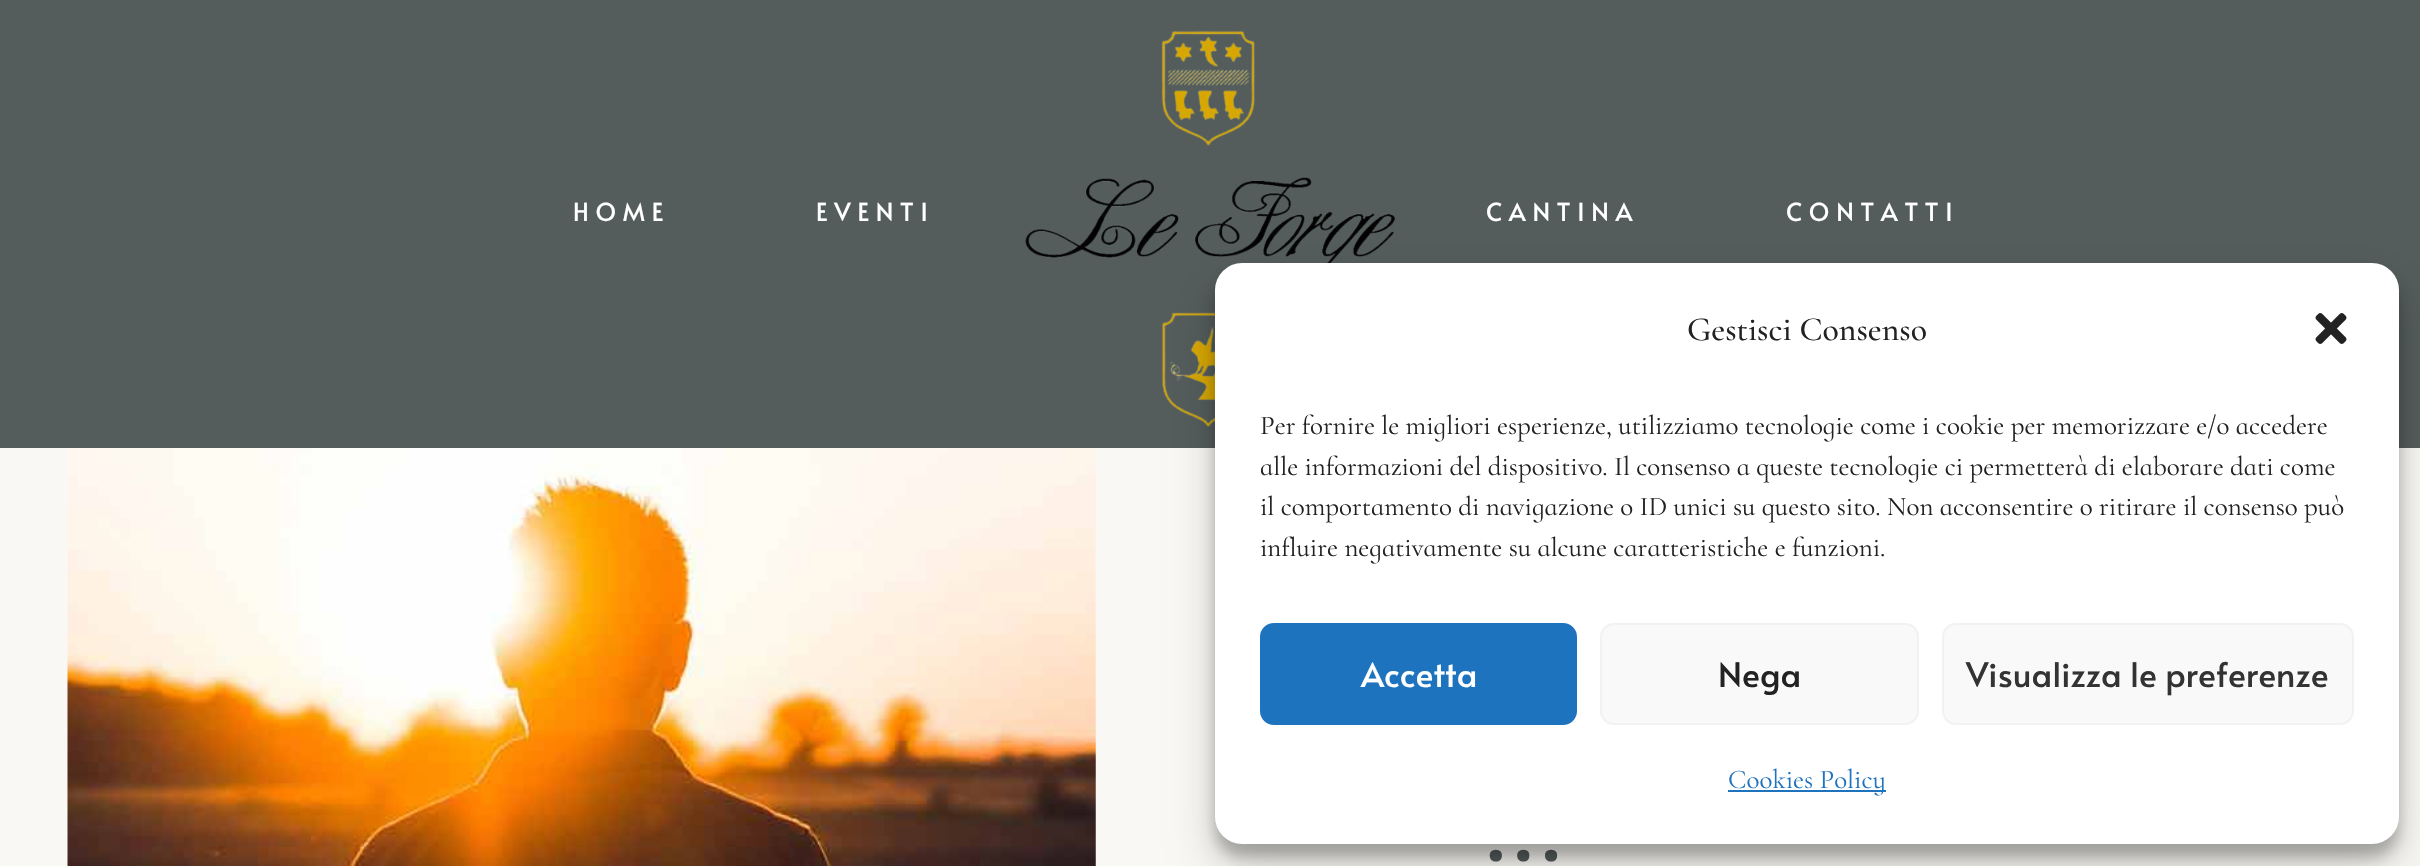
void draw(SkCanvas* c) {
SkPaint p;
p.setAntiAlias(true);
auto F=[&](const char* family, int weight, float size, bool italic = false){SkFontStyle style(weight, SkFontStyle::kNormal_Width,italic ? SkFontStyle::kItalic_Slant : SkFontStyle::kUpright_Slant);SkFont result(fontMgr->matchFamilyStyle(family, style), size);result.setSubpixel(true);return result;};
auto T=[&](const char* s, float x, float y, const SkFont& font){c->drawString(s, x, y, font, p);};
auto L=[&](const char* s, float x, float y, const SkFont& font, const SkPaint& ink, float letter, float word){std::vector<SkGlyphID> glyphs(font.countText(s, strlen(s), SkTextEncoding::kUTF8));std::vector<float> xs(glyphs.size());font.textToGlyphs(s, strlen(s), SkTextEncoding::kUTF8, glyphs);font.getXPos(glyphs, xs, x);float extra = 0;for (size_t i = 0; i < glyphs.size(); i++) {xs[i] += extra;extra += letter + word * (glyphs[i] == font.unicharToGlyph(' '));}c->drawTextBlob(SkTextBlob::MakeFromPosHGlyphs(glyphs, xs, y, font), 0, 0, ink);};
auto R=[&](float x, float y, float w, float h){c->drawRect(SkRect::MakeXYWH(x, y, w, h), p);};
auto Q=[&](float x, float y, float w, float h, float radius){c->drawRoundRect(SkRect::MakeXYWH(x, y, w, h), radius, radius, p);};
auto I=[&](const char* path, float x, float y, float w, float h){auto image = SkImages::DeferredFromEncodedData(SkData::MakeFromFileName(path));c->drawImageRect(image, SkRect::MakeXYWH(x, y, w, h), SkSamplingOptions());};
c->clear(0xfff9f8f4);
p.setColor(0xff545d5c);
R(0,0,2420,448);
auto f1 = F("Alata",400,24.75);
p.setColor(0xffffffff);
L("HOME",573,221,f1,p,6.75,0);
L("EVENTI",816,221,f1,p,6.75,0);
I("1.png",1025,30,371,397);
L("CANTINA",1486,221,f1,p,6.75,0);
L("CONTATTI",1786,221,f1,p,6.75,0);
I("2.png",67,448,1029,418);
auto f2 = F("Cormorant Infant",400,140);
p.setColor(0xff545d5c);
T("...",1482,860,f2);
p.setColor(0x3b000000);
p.setMaskFilter(SkMaskFilter::MakeBlur(kNormal_SkBlurStyle, 7));
c->drawRoundRect(SkRect::MakeXYWH(1215,277,1184,580),27,27,p);
p.setMaskFilter(nullptr);
p.setColor(0x30000000);
p.setMaskFilter(SkMaskFilter::MakeBlur(kNormal_SkBlurStyle, 22.5));
c->drawRoundRect(SkRect::MakeXYWH(1215,286,1184,580),27,27,p);
p.setMaskFilter(nullptr);
p.setColor(0xffffffff);
Q(1215,263,1184,581,27);
auto f3 = F("Cormorant Infant",500,33.75);
p.setColor(0xff222222);
T("Gestisci Consenso",1687,340,f3);
I("3.png",2315,313,32,31);
auto f4 = F("Cormorant Infant",400,27);
T("Per fornire le migliori esperienze, utilizziamo tecnologie come i cookie per memorizzare e/o accedere",1260,434,f4);
T("alle informazioni del dispositivo. Il consenso a queste tecnologie ci permetterà di elaborare dati come",1260,475,f4);
T("il comportamento di navigazione o ID unici su questo sito. Non acconsentire o ritirare il consenso può",1260,515,f4);
T("influire negativamente su alcune caratteristiche e funzioni.",1260,556,f4);
p.setColor(0xff1e73be);
c->drawRoundRect(SkRect::MakeXYWH(1261,624,315,100),13,13,p);
p.setStroke(true);
p.setStrokeWidth(2);
c->drawRoundRect(SkRect::MakeXYWH(1261,624,315,100),13,13,p);
auto f5 = F("Alata",400,33.75);
p.setStroke(false);
p.setColor(0xffffffff);
T("Accetta",1361,687,f5);
p.setColor(0xfff9f9f9);
c->drawRoundRect(SkRect::MakeXYWH(1601,624,317,100),13,13,p);
p.setStroke(true);
p.setColor(0xfff2f2f2);
c->drawRoundRect(SkRect::MakeXYWH(1601,624,317,100),13,13,p);
p.setStroke(false);
p.setColor(0xff222222);
T("Nega",1718,687,f5);
p.setColor(0xfff9f9f9);
c->drawRoundRect(SkRect::MakeXYWH(1943,624,410,100),13,13,p);
p.setStroke(true);
p.setColor(0xfff2f2f2);
c->drawRoundRect(SkRect::MakeXYWH(1943,624,410,100),13,13,p);
p.setStroke(false);
p.setColor(0xff333333);
T("Visualizza le preferenze",1966,687,f5);
p.setColor(0xff1e73be);
R(1728,790,158,2);
T("Cookies Policy",1728,788,f4);
}
